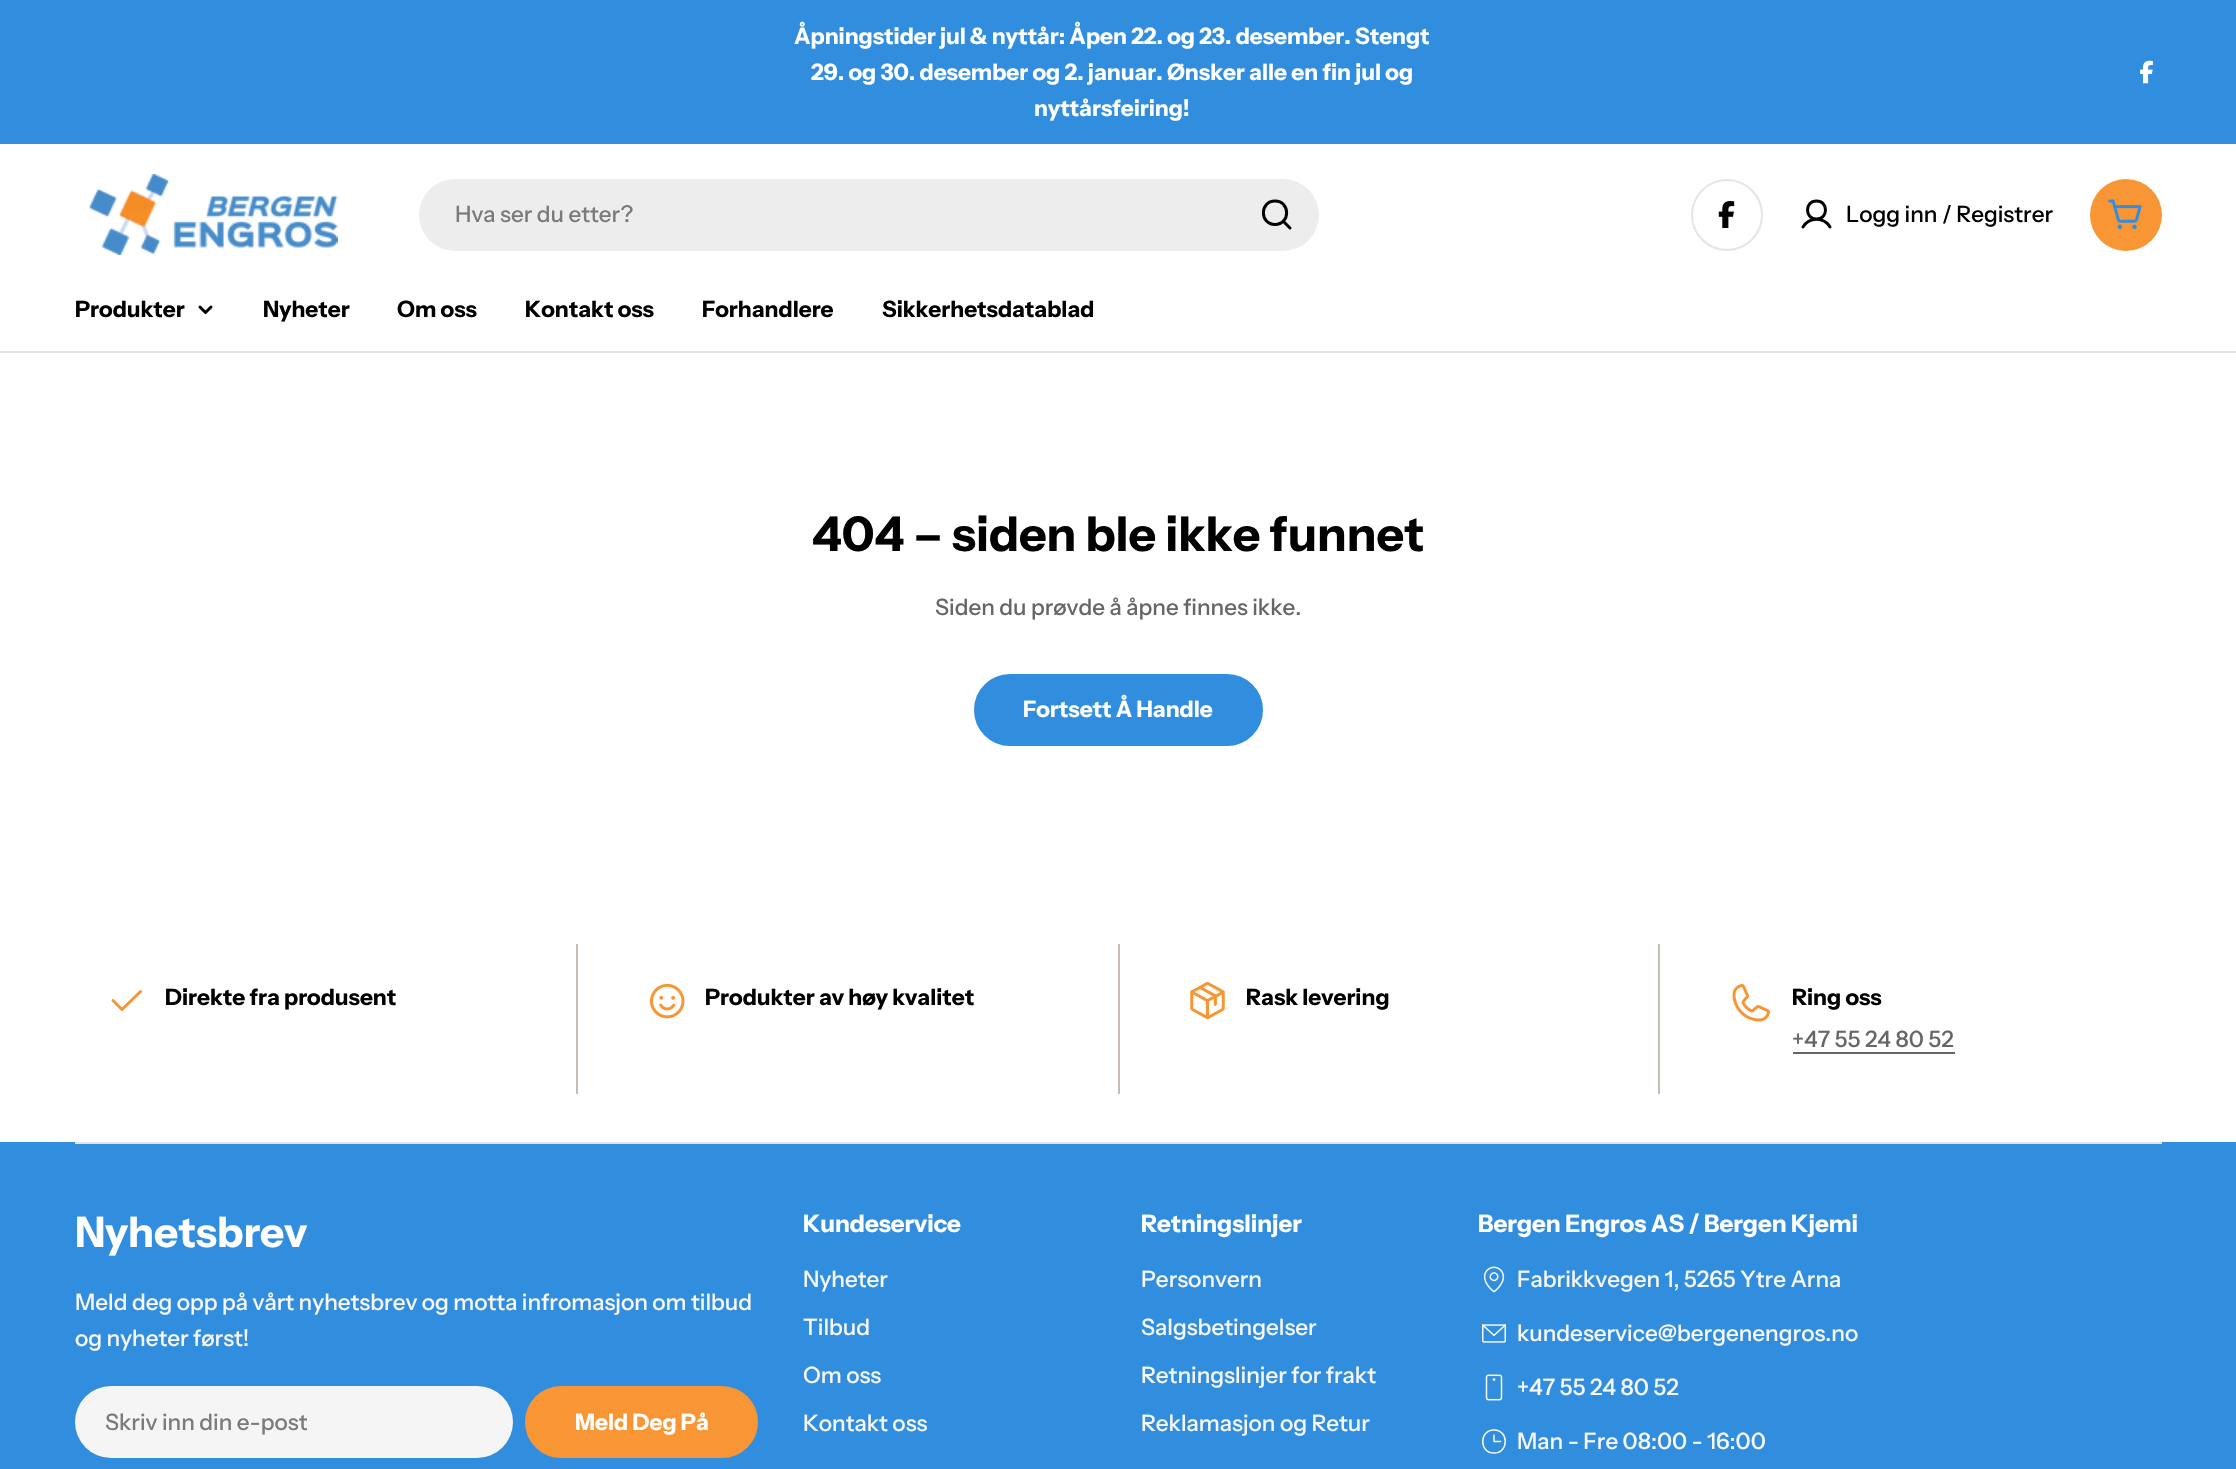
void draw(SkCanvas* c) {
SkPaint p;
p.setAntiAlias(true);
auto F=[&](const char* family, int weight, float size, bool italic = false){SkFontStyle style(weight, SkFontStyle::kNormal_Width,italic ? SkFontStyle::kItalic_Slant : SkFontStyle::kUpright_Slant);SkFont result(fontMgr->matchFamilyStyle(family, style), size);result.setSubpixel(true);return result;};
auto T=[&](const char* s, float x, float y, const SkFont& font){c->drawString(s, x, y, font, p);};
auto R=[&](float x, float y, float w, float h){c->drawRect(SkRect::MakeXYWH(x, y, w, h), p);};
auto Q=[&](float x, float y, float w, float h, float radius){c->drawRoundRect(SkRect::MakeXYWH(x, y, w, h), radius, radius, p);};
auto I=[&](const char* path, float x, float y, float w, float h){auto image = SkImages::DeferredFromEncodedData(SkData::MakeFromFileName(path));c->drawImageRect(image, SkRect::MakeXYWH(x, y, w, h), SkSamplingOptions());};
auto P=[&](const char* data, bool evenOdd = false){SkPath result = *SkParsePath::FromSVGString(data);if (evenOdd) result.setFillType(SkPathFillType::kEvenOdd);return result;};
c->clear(0xffffffff);
p.setColor(0xff318dde);
R(0,0,2236,144);
auto f1 = F("Instrument Sans",700,22.5);
p.setColor(0xffffffff);
T("Åpningstider jul & nyttår: Åpen 22. og 23. desember. Stengt",794,44,f1);
T("29. og 30. desember og 2. januar. Ønsker alle en fin jul og",811,80,f1);
T("nyttårsfeiring!",1034,116,f1);
I("1.png",2140,60,13,24);
I("2.png",88,174,250,81);
p.setColor(0xffededed);
Q(419,179,900,72,36);
auto f2 = F("Instrument Sans",500,22.5);
p.setColor(0xff7b7b7b);
T("Hva ser du etter?",455,222,f2);
p.setStroke(true);
p.setStrokeWidth(3);
p.setStrokeCap(SkPaint::kRound_Cap);
p.setStrokeJoin(SkPaint::kRound_Join);
p.setColor(0xff000000);
c->drawPath(P("M1275 224.5c15.5 0 15.5-23.5 0-23.5c-15.5 0-15.5 23.5 0 23.5zm8-3.5l7 7"),p);
p.setStrokeWidth(2);
p.setStrokeCap(SkPaint::kButt_Cap);
p.setStrokeJoin(SkPaint::kMiter_Join);
p.setColor(0xffe5e5e5);
c->drawCircle(1727,215,35,p);
I("3.png",1718,201,17,27);
p.setStrokeWidth(3);
p.setStrokeCap(SkPaint::kRound_Cap);
p.setStrokeJoin(SkPaint::kRound_Join);
p.setColor(0xff000000);
c->drawPath(P("M1816.5 219c12 0 12-18 0-18c-12 0-12 18 0 18zm-13.5 8c6-10.5 21-10.5 27 0"),p);
p.setStroke(false);
T("Logg inn / Registrer",1846,222,f2);
p.setColor(0xfff89534);
c->drawCircle(2126,215,36,p);
I("4.png",2108,199,34,31);
p.setColor(0xffe5e5e5);
R(0,351,2236,2);
p.setColor(0xff000000);
T("Produkter",75,317,f1);
p.setStroke(true);
c->drawPath(P("M211 307l-5.5 5.5l-5.5-5.5"),p);
p.setStroke(false);
T("Nyheter",263,317,f1);
T("Om oss",397,317,f1);
T("Kontakt oss",525,317,f1);
T("Forhandlere",702,317,f1);
T("Sikkerhetsdatablad",882,317,f1);
auto f3 = F("Instrument Sans",700,48);
T("404 – siden ble ikke funnet",812,551,f3);
p.setColor(0xff666666);
T("Siden du prøvde å åpne finnes ikke.",935,615,f2);
p.setColor(0xff318dde);
c->drawRoundRect(SkRect::MakeXYWH(975,675,287,70),35,35,p);
p.setStroke(true);
p.setStrokeWidth(2);
p.setStrokeCap(SkPaint::kButt_Cap);
p.setStrokeJoin(SkPaint::kMiter_Join);
c->drawRoundRect(SkRect::MakeXYWH(975,675,287,70),35,35,p);
p.setStroke(false);
p.setColor(0xffffffff);
T("Fortsett Å Handle",1023,717,f1);
p.setStroke(true);
p.setStrokeWidth(3);
p.setStrokeCap(SkPaint::kRound_Cap);
p.setStrokeJoin(SkPaint::kRound_Join);
p.setColor(0xfff89534);
c->drawPath(P("M140.5 991.5l-18.5 18l-9-9"),p);
p.setStroke(false);
p.setColor(0xff000000);
T("Direkte fra produsent",165,1005,f1);
p.setColor(0xffc6bfb1);
R(576,944,2,150);
I("5.png",650,983,35,36);
p.setColor(0xff000000);
T("Produkter av høy kvalitet",705,1005,f1);
p.setColor(0xffc6bfb1);
R(1118,944,2,150);
I("6.png",1190,982,35,38);
p.setColor(0xff000000);
T("Rask levering",1246,1005,f1);
p.setColor(0xffc6bfb1);
R(1658,944,2,150);
I("7.png",1732,984,38,38);
p.setColor(0xff000000);
T("Ring oss",1792,1005,f1);
p.setColor(0xff666666);
T("+47 55 24 80 52",1792,1047,f2);
R(1793,1052,162,2);
p.setColor(0xff318dde);
R(0,1142,2236,327);
p.setColor(0xffe5e5e5);
R(75,1142,2087,2);
auto f4 = F("Instrument Sans",700,42);
p.setColor(0xffffffff);
T("Nyhetsbrev",75,1247,f4);
p.setColor(0xfff7f7f7);
T("Meld deg opp på vårt nyhetsbrev og motta infromasjon om tilbud",75,1310,f2);
T("og nyheter først!",75,1346,f2);
p.setColor(0xfff5f5f5);
Q(75,1386,438,72,36);
p.setColor(0xff7b7b7b);
T("Skriv inn din e-post",105,1430,f2);
p.setColor(0xfff89534);
c->drawRoundRect(SkRect::MakeXYWH(526,1387,231,70),35,35,p);
p.setStroke(true);
p.setStrokeWidth(2);
p.setStrokeCap(SkPaint::kButt_Cap);
p.setStrokeJoin(SkPaint::kMiter_Join);
c->drawRoundRect(SkRect::MakeXYWH(526,1387,231,70),35,35,p);
p.setStroke(false);
p.setColor(0xffffffff);
T("Meld Deg På",575,1430,f1);
auto f5 = F("Instrument Sans",700,24);
T("Kundeservice",803,1232,f5);
p.setColor(0xfff7f7f7);
T("Nyheter",803,1287,f2);
T("Tilbud",803,1335,f2);
T("Om oss",803,1383,f2);
T("Kontakt oss",803,1431,f2);
p.setColor(0xffffffff);
T("Retningslinjer",1141,1232,f5);
p.setColor(0xfff7f7f7);
T("Personvern",1141,1287,f2);
T("Salgsbetingelser",1141,1335,f2);
T("Retningslinjer for frakt",1141,1383,f2);
T("Reklamasjon og Retur",1141,1431,f2);
p.setColor(0xffffffff);
T("Bergen Engros AS / Bergen Kjemi",1478,1232,f5);
I("8.png",1483,1266,22,27);
p.setColor(0xfff7f7f7);
T("Fabrikkvegen 1, 5265 Ytre Arna",1517,1287,f2);
I("9.png",1482,1324,24,19);
T("kundeservice@bergenengros.no",1517,1341,f2);
I("10.png",1485,1374,18,27);
T("+47 55 24 80 52",1517,1395,f2);
p.setStroke(true);
p.setStrokeWidth(1.5);
p.setStrokeCap(SkPaint::kRound_Cap);
p.setStrokeJoin(SkPaint::kRound_Join);
c->drawPath(P("M1494 1453c15 0 15-23 0-23c-15 0-15 23 0 23zm0-18v6.5h6.5"),p);
p.setStroke(false);
T("Man - Fre 08:00 - 16:00",1517,1449,f2);
}
